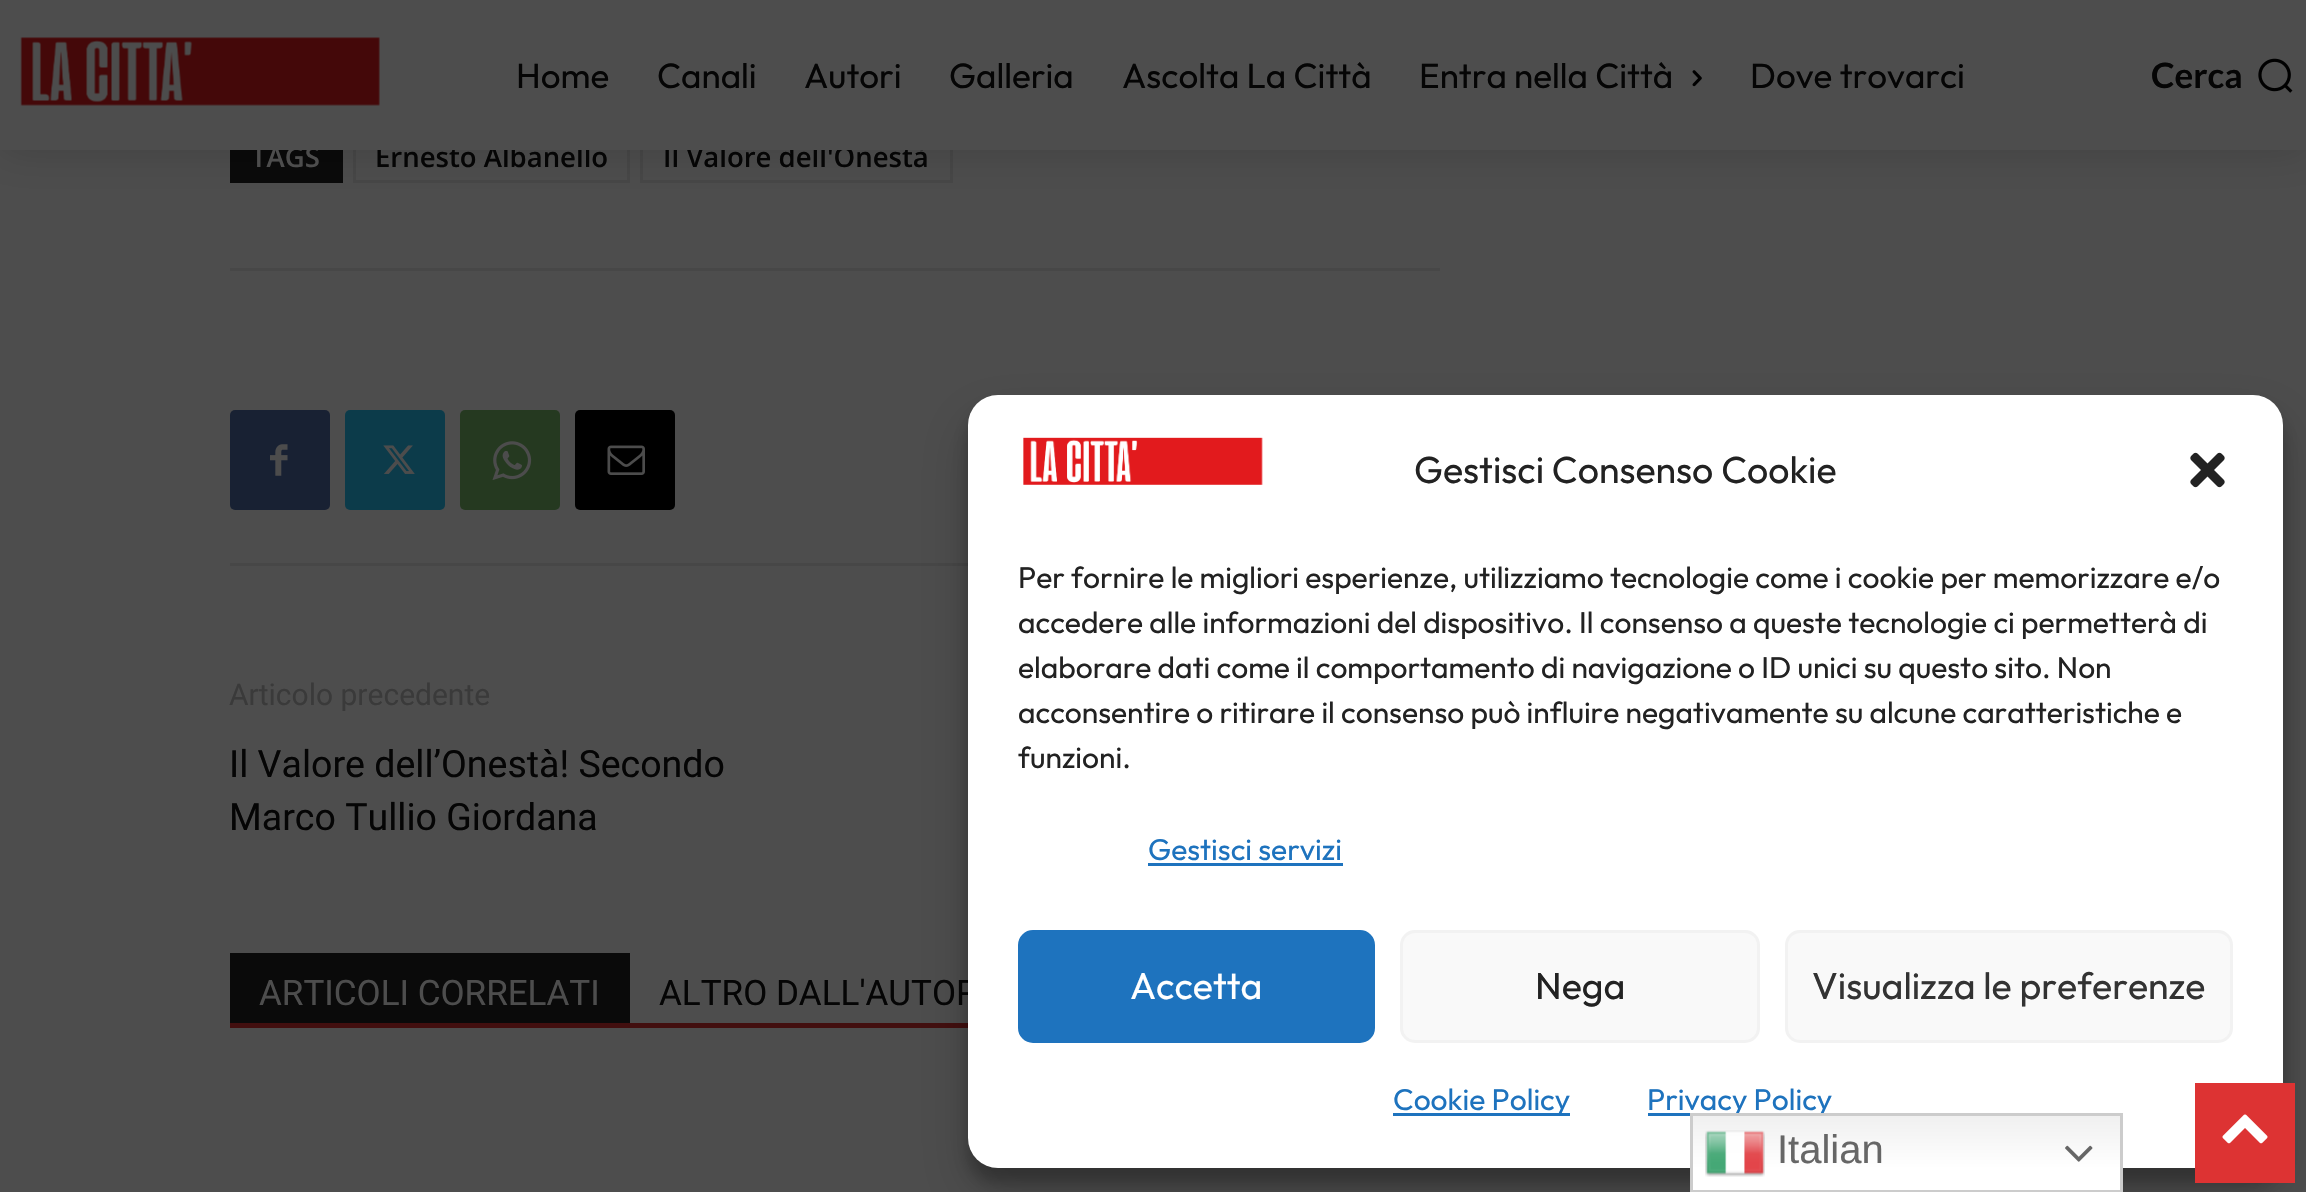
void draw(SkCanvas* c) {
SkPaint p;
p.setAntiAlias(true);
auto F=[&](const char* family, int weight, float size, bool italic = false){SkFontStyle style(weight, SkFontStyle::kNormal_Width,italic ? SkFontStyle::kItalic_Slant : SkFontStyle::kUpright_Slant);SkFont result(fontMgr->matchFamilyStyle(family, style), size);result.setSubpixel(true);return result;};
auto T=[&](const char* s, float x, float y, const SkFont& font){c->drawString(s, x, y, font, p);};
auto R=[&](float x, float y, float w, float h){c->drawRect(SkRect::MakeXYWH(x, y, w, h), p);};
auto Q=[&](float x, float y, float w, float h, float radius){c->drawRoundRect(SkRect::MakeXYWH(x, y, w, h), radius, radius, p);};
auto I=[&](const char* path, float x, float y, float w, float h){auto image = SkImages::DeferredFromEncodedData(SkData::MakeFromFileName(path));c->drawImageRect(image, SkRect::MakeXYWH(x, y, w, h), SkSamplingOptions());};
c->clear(0xff4d4d4d);
p.setColor(0xff0a0a0a);
R(230,150,113,33);
p.setStroke(true);
p.setStrokeWidth(3);
p.setColor(0xff474747);
c->drawRect(SkRect::MakeXYWH(354.5,134.5,274,47),p);
c->drawRect(SkRect::MakeXYWH(641.5,134.5,310,47),p);
p.setStroke(false);
p.setColor(0x29000000);
p.setMaskFilter(SkMaskFilter::MakeBlur(kNormal_SkBlurStyle, 20));
c->drawRect(SkRect::MakeXYWH(0,0,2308,150),p);
p.setMaskFilter(nullptr);
auto f1 = F("Open Sans",600,27.5);
p.setColor(0xff050505);
T("Ernesto Albanello",375,167,f1);
T("Il Valore dell'Onestà",663,167,f1);
p.setColor(0xff4d4d4d);
R(0,0,2306,150);
I("1.png",20,37,360,69);
auto f2 = F("Outfit",100,35);
p.setColor(0xff050505);
T("Home",516,88,f2);
T("Canali",657,88,f2);
T("Autori",804,88,f2);
T("Galleria",949,88,f2);
T("Ascolta La Città",1122,88,f2);
T("Entra nella Città",1419,88,f2);
I("2.png",1692,70,10,17);
T("Dove trovarci",1750,88,f2);
auto f3 = F("Lato",700,35);
T("Cerca",2151,88,f3);
I("3.png",2258,58,35,35);
p.setColor(0xff4d4d4d);
T("TAGS",251,167,f1);
p.setColor(0xff474747);
R(230,268,1210,3);
R(230,563,738,3);
p.setColor(0xff182133);
Q(230,410,100,100,5);
I("4.png",270,444,18,32);
p.setColor(0xff0c3b4a);
Q(345,410,100,100,5);
I("5.png",383,445,32,29);
p.setColor(0xff253920);
Q(460,410,100,100,5);
I("6.png",492,441,40,39);
p.setColor(0xff000000);
Q(575,410,100,100,5);
I("7.png",607,445,38,30);
auto f4 = F("Roboto",400,30);
p.setColor(0xff3a3a3a);
T("Articolo precedente",229,705,f4);
auto f5 = F("Roboto",400,37.5);
p.setColor(0xff050505);
T("Il Valore dell’Onestà! Secondo",229,777,f5);
T("Marco Tullio Giordana",229,830,f5);
p.setColor(0xff420f0f);
R(230,1023,738,5);
p.setColor(0xff0a0a0a);
R(230,953,400,70);
auto f6 = F("Roboto",400,35);
p.setColor(0xff4d4d4d);
T("ARTICOLI CORRELATI",259,1005,f6);
p.setColor(0xff050505);
T("ALTRO DALL'AUTOR",659,1005,f6);
p.setColor(0x3b000000);
p.setMaskFilter(SkMaskFilter::MakeBlur(kNormal_SkBlurStyle, 7.5));
c->drawRoundRect(SkRect::MakeXYWH(968,410,1315,773),30,30,p);
p.setMaskFilter(nullptr);
p.setColor(0x30000000);
p.setMaskFilter(SkMaskFilter::MakeBlur(kNormal_SkBlurStyle, 25));
c->drawRoundRect(SkRect::MakeXYWH(968,420,1315,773),30,30,p);
p.setMaskFilter(nullptr);
p.setColor(0xffffffff);
Q(968,395,1315,773,30);
I("8.png",1023,437,240,48);
auto f7 = F("Outfit",100,37.5);
p.setColor(0xff222222);
T("Gestisci Consenso Cookie",1414,483,f7);
I("9.png",2190,452,35,36);
auto f8 = F("Outfit",100,30);
T("Per fornire le migliori esperienze, utilizziamo tecnologie come i cookie per memorizzare e/o",1018,588,f8);
T("accedere alle informazioni del dispositivo. Il consenso a queste tecnologie ci permetterà di",1018,633,f8);
T("elaborare dati come il comportamento di navigazione o ID unici su questo sito. Non",1018,678,f8);
T("acconsentire o ritirare il consenso può influire negativamente su alcune caratteristiche e",1018,723,f8);
T("funzioni.",1018,768,f8);
p.setColor(0xff1e73be);
T("Gestisci servizi",1148,860,f8);
R(1148,863,195,3);
c->drawRoundRect(SkRect::MakeXYWH(1019.5,931.5,354,110),13.5,13.5,p);
p.setStroke(true);
c->drawRoundRect(SkRect::MakeXYWH(1019.5,931.5,354,110),13.5,13.5,p);
p.setStroke(false);
p.setColor(0xffffffff);
T("Accetta",1130,999,f7);
p.setColor(0xfff9f9f9);
c->drawRoundRect(SkRect::MakeXYWH(1401.5,931.5,357,110),13.5,13.5,p);
p.setStroke(true);
p.setColor(0xfff2f2f2);
c->drawRoundRect(SkRect::MakeXYWH(1401.5,931.5,357,110),13.5,13.5,p);
p.setStroke(false);
p.setColor(0xff222222);
T("Nega",1535,999,f7);
p.setColor(0xfff9f9f9);
c->drawRoundRect(SkRect::MakeXYWH(1786.5,931.5,445,110),13.5,13.5,p);
p.setStroke(true);
p.setColor(0xfff2f2f2);
c->drawRoundRect(SkRect::MakeXYWH(1786.5,931.5,445,110),13.5,13.5,p);
p.setStroke(false);
p.setColor(0xff333333);
T("Visualizza le preferenze",1812,999,f7);
p.setColor(0xff1e73be);
R(1393,1113,177,3);
T("Cookie Policy",1393,1110,f8);
R(1648,1113,42,3);
T("Privacy Policy",1647,1110,f8);
{
const SkColor colors[] = {0xffefefef,0xffffffff};
const float stops[] = {0,.7};
const SkPoint ends[] = {{1906,1113}, {1906,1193}};
p.setShader(SkGradientShader::MakeLinear(ends, colors, stops, 2, SkTileMode::kClamp));
p.setAlpha(255);
}
R(1693,1116,427,74);
p.setStroke(true);
p.setShader(nullptr);
p.setColor(0xffcccccc);
c->drawRect(SkRect::MakeXYWH(1691.5,1114.5,430,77),p);
I("10.png",1705,1130,60,47);
auto f9 = F("Liberation Sans",400,40);
p.setStroke(false);
p.setColor(0xff666666);
T("Italian",1777,1163,f9);
I("11.png",2065,1145,28,17);
p.setColor(0xffdd3333);
R(2195,1083,100,100);
I("12.png",2222,1114,46,30);
}
